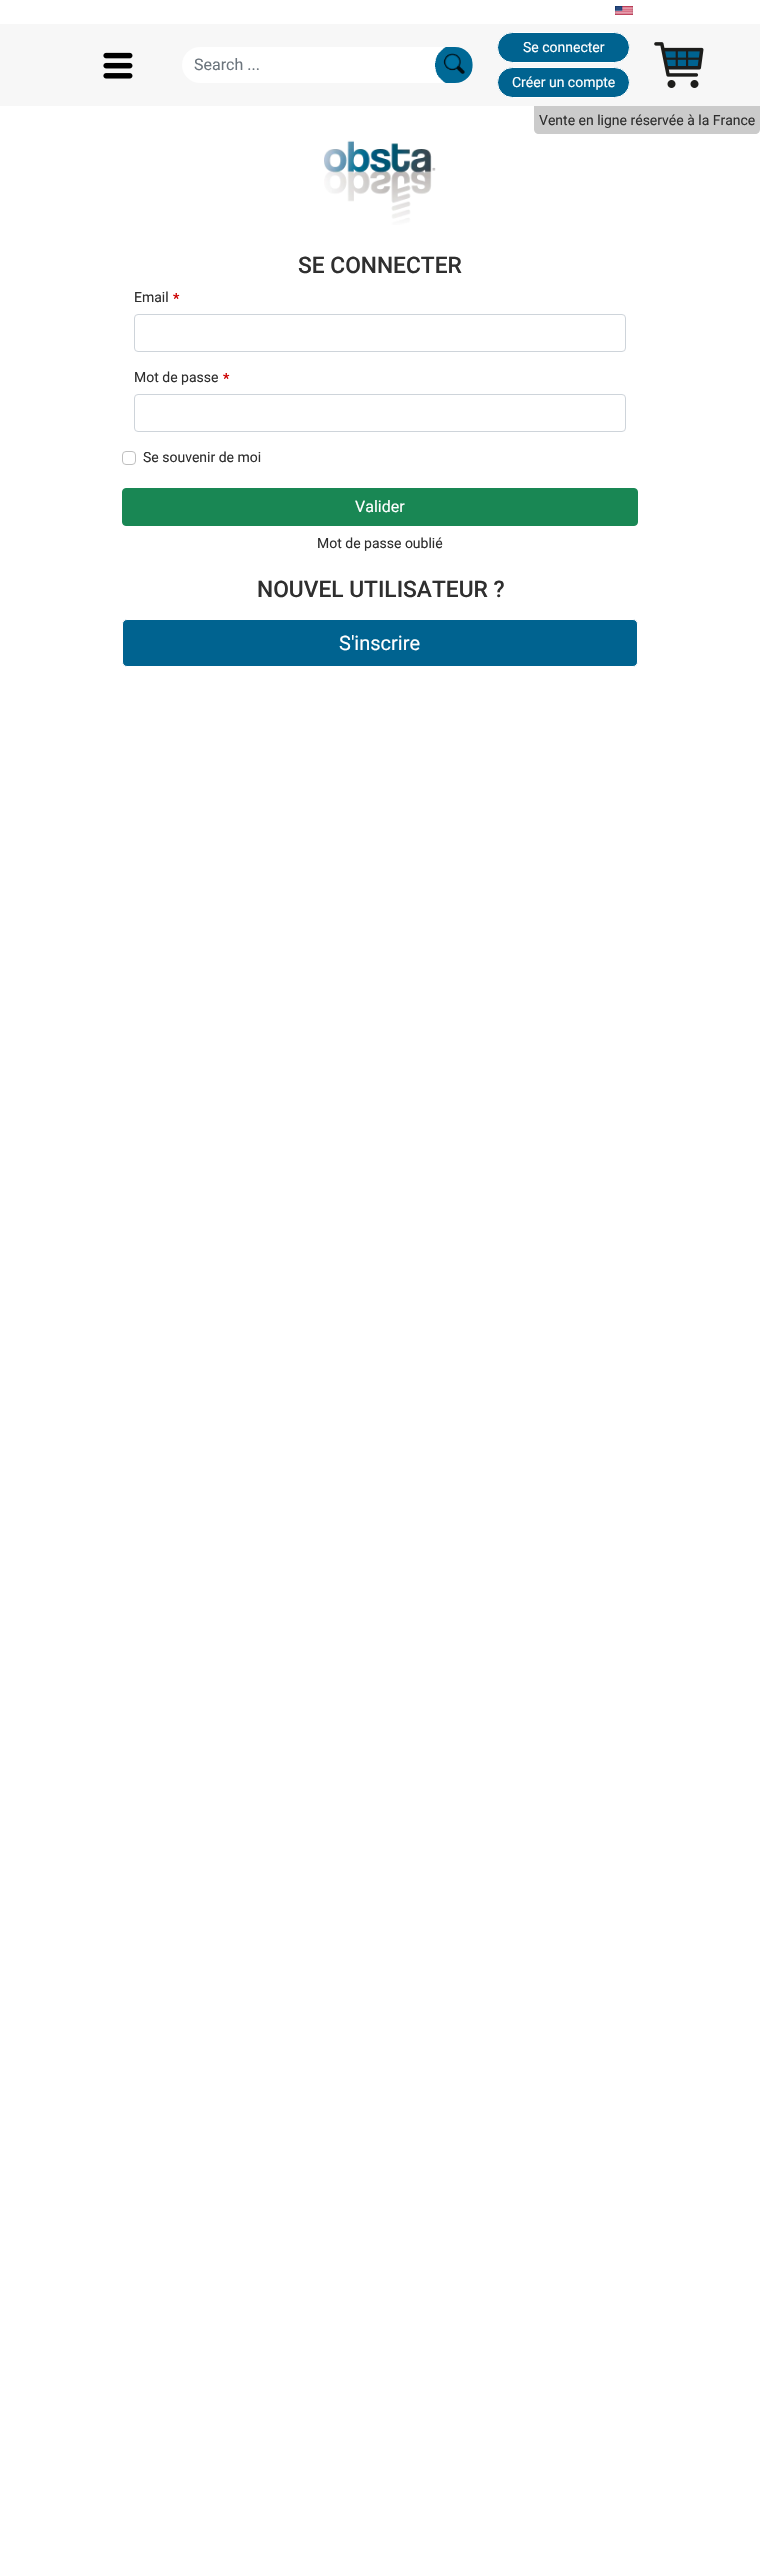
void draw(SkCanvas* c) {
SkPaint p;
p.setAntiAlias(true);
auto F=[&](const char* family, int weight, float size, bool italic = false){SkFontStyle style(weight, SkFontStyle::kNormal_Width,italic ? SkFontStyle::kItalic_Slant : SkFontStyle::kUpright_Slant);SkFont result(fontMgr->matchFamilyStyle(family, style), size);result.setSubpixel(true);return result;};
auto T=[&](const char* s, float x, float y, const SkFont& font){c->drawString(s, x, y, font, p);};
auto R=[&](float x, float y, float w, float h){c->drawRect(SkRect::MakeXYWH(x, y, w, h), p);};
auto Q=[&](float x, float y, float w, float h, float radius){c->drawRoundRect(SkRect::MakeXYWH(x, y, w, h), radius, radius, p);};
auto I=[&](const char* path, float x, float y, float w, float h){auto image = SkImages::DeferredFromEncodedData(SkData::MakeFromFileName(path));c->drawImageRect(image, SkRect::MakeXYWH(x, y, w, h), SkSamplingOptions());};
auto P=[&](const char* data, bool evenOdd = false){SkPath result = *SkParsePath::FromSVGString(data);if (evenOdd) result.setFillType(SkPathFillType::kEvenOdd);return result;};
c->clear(0xffffffff);
I("1.png",615,6,18,9);
p.setColor(0xfff7f7f7);
R(0,24,760,82);
I("2.png",103,52,30,27);
p.setColor(0xffffffff);
Q(182,47,291,36,18);
I("3.png",435,47,38,36);
auto f1 = F("Roboto",400,16);
p.setColor(0xff6c757d);
T("Search ...",194,70,f1);
p.setColor(0xff006390);
c->drawRoundRect(SkRect::MakeXYWH(497.5,32.5,132,30),15,15,p);
p.setStroke(true);
p.setStrokeWidth(1);
p.setColor(0xffffffff);
c->drawRoundRect(SkRect::MakeXYWH(497.5,32.5,132,30),15,15,p);
auto f2 = F("Roboto",400,14);
p.setStroke(false);
T("Se connecter",523,52,f2);
p.setColor(0xff006390);
c->drawRoundRect(SkRect::MakeXYWH(497.5,67.5,132,30),15,15,p);
p.setStroke(true);
p.setColor(0xffffffff);
c->drawRoundRect(SkRect::MakeXYWH(497.5,67.5,132,30),15,15,p);
p.setStroke(false);
T("Créer un compte",512,87,f2);
I("4.png",654,42,50,46);
p.setColor(0xffcbcbcb);
c->drawPath(P("M534 106h226v23c0 3-2 5-5 5h-216c-3 0-5-2-5-5z"),p);
p.setColor(0xff2f2f2f);
T("Vente en ligne réservée à la France",539,125,f2);
I("5.png",324,140,112,85);
auto f3 = F("Roboto",500,22.75);
T("SE CONNECTER",298,273,f3);
T("Email",134,302,f2);
auto f4 = F("Roboto",700,14);
p.setColor(0xffcc0000);
T("*",173,303,f4);
p.setStroke(true);
p.setColor(0xffced4da);
c->drawRoundRect(SkRect::MakeXYWH(134.5,314.5,491,37),3.5,3.5,p);
p.setStroke(false);
p.setColor(0xff2f2f2f);
T("Mot de passe",134,382,f2);
p.setColor(0xffcc0000);
T("*",223,383,f4);
p.setStroke(true);
p.setColor(0xffced4da);
c->drawRoundRect(SkRect::MakeXYWH(134.5,394.5,491,37),3.5,3.5,p);
p.setColor(0xffbfbfbf);
c->drawRoundRect(SkRect::MakeXYWH(122.5,451.5,13,13),3.5,3.5,p);
p.setStroke(false);
p.setColor(0xff2f2f2f);
T("Se souvenir de moi",143,462,f2);
p.setColor(0xff198754);
c->drawRoundRect(SkRect::MakeXYWH(122.5,488.5,515,37),3.5,3.5,p);
p.setStroke(true);
c->drawRoundRect(SkRect::MakeXYWH(122.5,488.5,515,37),3.5,3.5,p);
p.setStroke(false);
p.setColor(0xffffffff);
T("Valider",355,512,f1);
p.setColor(0xff2f2f2f);
T("Mot de passe oublié",317,548,f2);
T("NOUVEL UTILISATEUR ?",257,597,f3);
p.setColor(0xff006390);
c->drawRoundRect(SkRect::MakeXYWH(122.5,619.5,515,47),4.5,4.5,p);
p.setStroke(true);
p.setColor(0xffffffff);
c->drawRoundRect(SkRect::MakeXYWH(122.5,619.5,515,47),4.5,4.5,p);
auto f5 = F("Roboto",400,20);
p.setStroke(false);
T("S'inscrire",339,650,f5);
}
